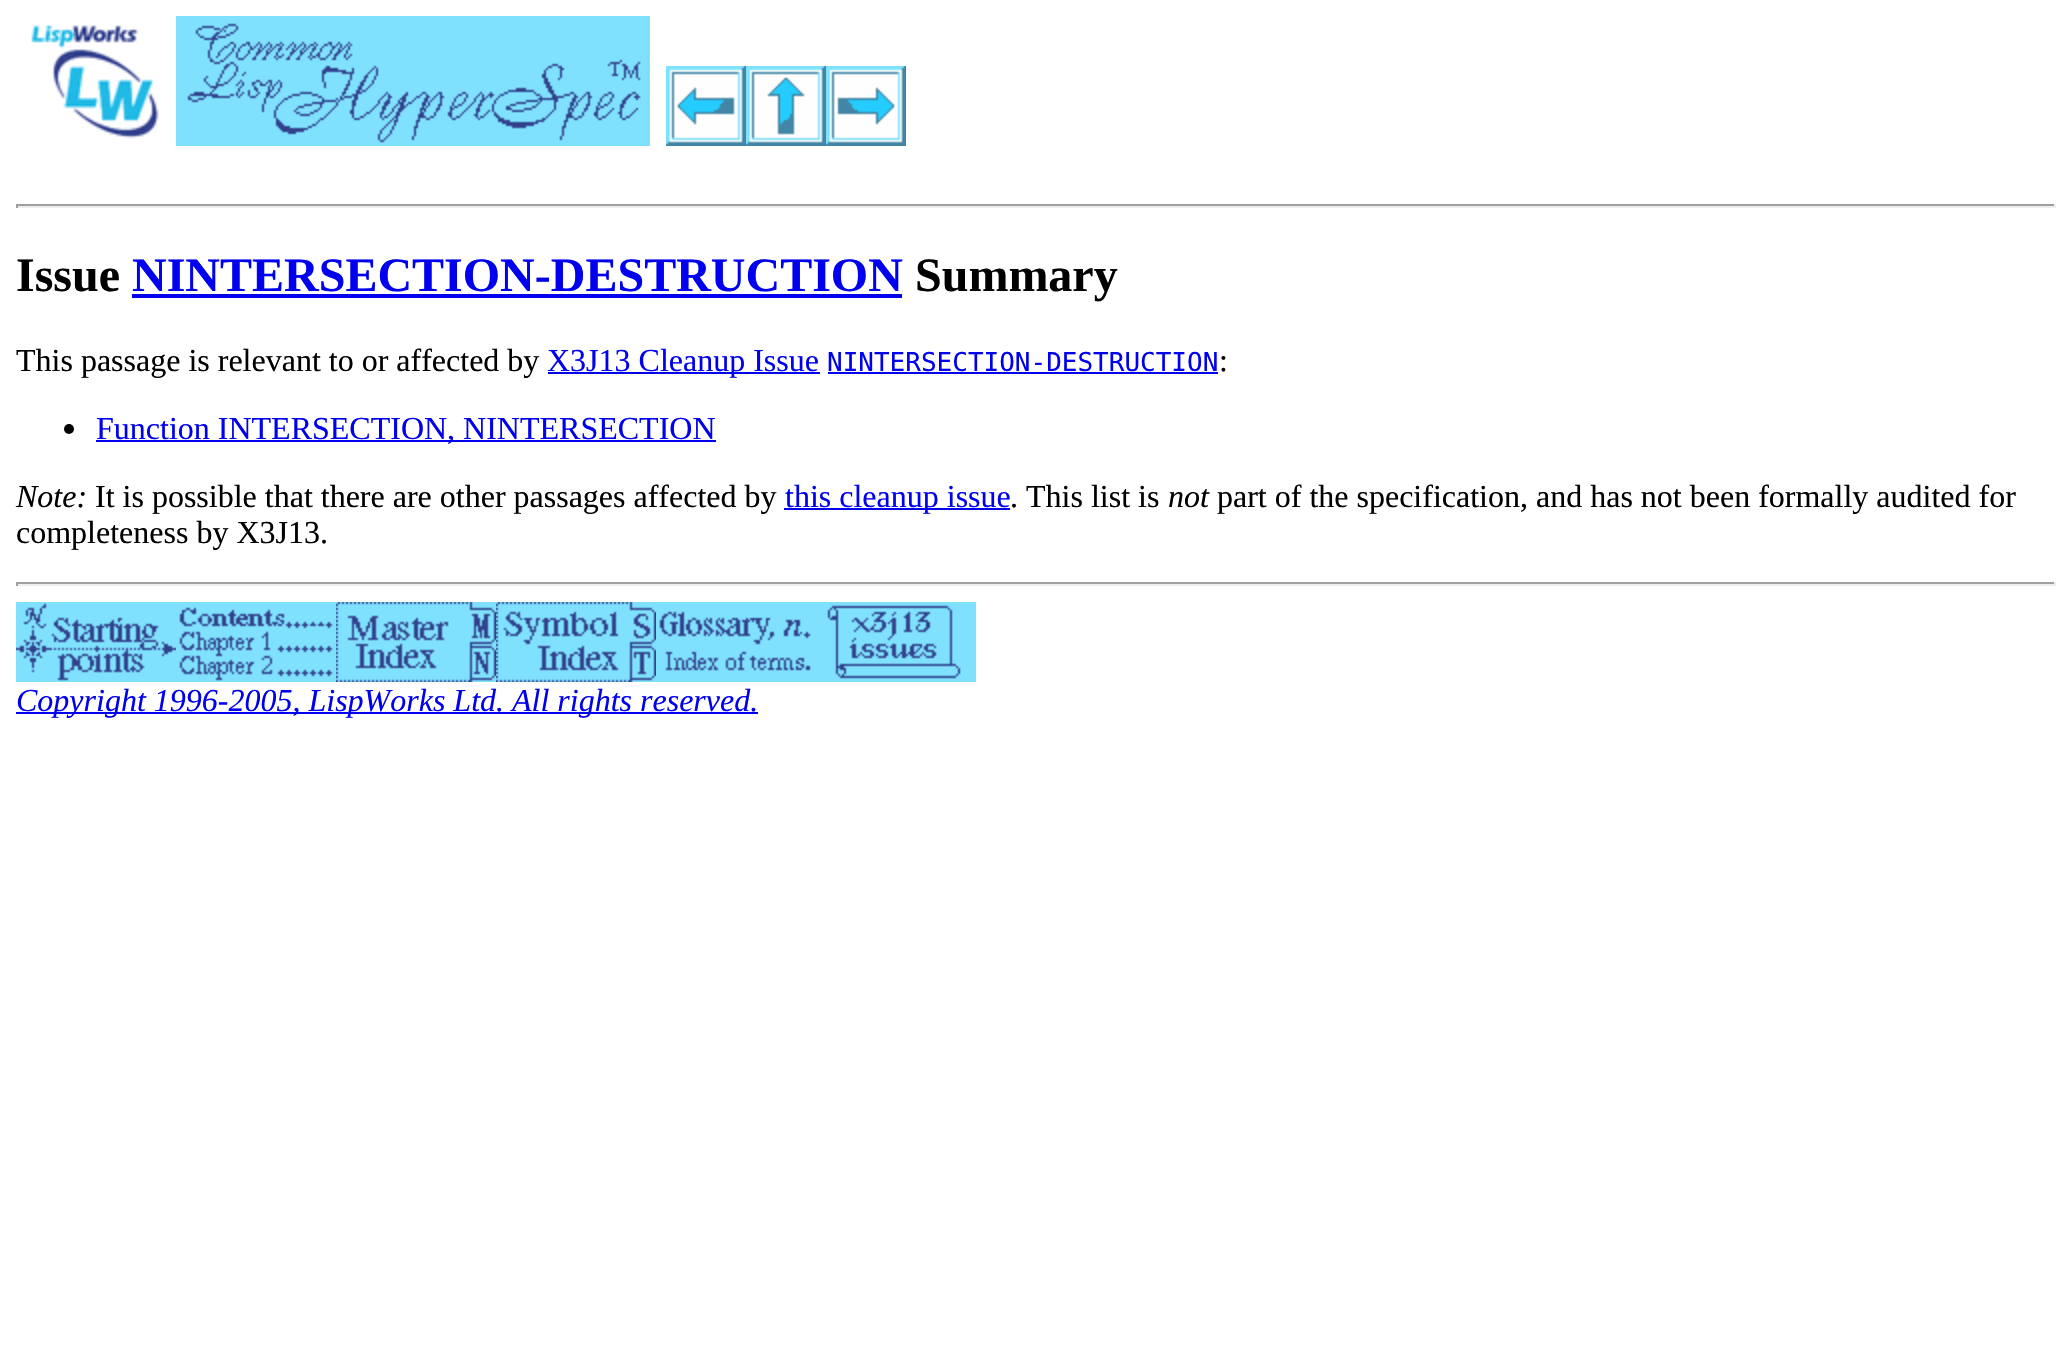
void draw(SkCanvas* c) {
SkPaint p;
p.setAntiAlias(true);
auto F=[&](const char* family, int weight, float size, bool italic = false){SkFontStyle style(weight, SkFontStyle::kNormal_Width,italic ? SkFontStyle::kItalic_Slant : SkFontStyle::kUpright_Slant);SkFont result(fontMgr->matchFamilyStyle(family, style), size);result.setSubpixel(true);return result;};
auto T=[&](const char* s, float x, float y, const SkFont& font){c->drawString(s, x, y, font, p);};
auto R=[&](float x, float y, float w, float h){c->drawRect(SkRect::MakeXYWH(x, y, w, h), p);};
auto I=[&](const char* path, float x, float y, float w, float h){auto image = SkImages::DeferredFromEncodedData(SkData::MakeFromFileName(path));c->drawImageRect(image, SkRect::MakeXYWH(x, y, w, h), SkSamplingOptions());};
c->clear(0xffffffff);
I("1.png",31,24,128,115);
I("2.png",176,16,474,130);
I("3.png",666,66,80,80);
I("4.png",746,66,80,80);
I("5.png",826,66,80,80);
p.setColor(0xff9f9f9f);
R(16,204,2040,2);
p.setColor(0xffeeeeee);
R(2054,204,2,4);
R(16,206,2040,2);
p.setColor(0xff9f9f9f);
R(16,204,2,4);
auto f1 = F("Liberation Serif",700,48);
p.setColor(0xff000000);
T("Issue",16,291,f1);
p.setColor(0xff0000ee);
T("NINTERSECTION-DESTRUCTION",132,291,f1);
R(132,294,770,4);
p.setColor(0xff000000);
T("Summary",915,291,f1);
auto f2 = F("Liberation Serif",400,32);
T("This passage is relevant to or affected by",16,371,f2);
p.setColor(0xff0000ee);
R(548,372,272,2);
T("X3J13 Cleanup Issue",547,371,f2);
auto f3 = F("DejaVu Sans Mono",400,26);
T("NINTERSECTION-DESTRUCTION",827,371,f3);
R(828,372,390,2);
p.setColor(0xff000000);
T(":",1219,371,f2);
c->drawCircle(69,429,5,p);
p.setColor(0xff0000ee);
R(96,440,620,2);
T("Function INTERSECTION, NINTERSECTION",96,439,f2);
auto f4 = F("Liberation Serif",400,32,true);
p.setColor(0xff000000);
T("Note:",16,507,f4);
T("It is possible that there are other passages affected by",95,507,f2);
p.setColor(0xff0000ee);
R(784,508,226,2);
T("this cleanup issue",785,507,f2);
p.setColor(0xff000000);
T(". This list is",1010,507,f2);
T("not",1168,507,f4);
T("part of the specification, and has not been formally audited for",1217,507,f2);
T("completeness by X3J13.",16,543,f2);
p.setColor(0xff9f9f9f);
R(16,582,2040,2);
p.setColor(0xffeeeeee);
R(2054,582,2,4);
R(16,584,2040,2);
p.setColor(0xff9f9f9f);
R(16,582,2,4);
I("6.png",16,602,160,80);
I("7.png",176,602,160,80);
I("8.png",336,602,160,80);
I("9.png",496,602,160,80);
I("10.png",656,602,160,80);
I("11.png",816,602,160,80);
p.setColor(0xff0000ee);
R(16,712,742,2);
T("Copyright 1996-2005, LispWorks Ltd. All rights reserved.",16,711,f4);
}
